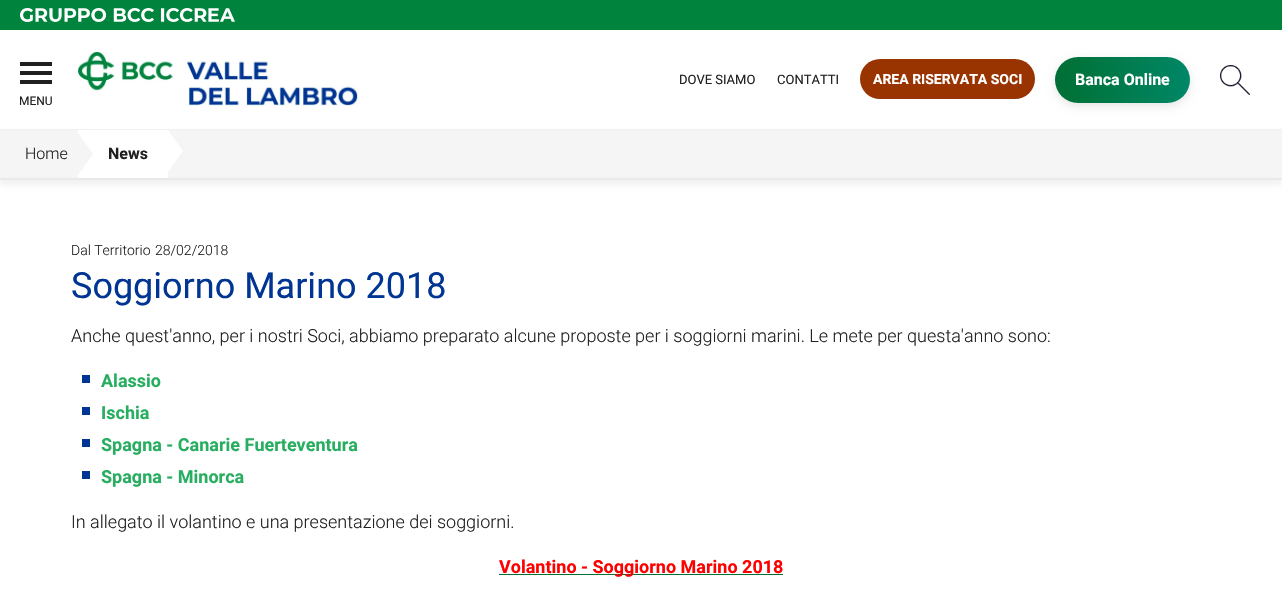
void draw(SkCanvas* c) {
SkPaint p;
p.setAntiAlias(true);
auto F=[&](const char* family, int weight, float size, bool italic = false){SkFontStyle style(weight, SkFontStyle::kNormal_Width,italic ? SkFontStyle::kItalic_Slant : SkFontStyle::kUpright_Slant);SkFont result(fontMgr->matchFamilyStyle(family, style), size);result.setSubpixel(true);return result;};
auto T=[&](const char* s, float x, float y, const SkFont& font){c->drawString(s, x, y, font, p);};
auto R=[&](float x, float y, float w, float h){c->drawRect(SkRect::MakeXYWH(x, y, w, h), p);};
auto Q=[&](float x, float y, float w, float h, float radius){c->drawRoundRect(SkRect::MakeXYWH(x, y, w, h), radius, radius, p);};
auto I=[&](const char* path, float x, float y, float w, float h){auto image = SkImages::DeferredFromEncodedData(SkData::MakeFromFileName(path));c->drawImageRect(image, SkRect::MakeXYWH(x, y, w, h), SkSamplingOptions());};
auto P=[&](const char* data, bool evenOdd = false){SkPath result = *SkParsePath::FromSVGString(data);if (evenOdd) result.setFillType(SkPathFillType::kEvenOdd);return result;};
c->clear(0xffffffff);
p.setColor(0xff00843d);
R(0,0,1282,30);
I("1.png",20,8,215,14);
p.setColor(0x0d000000);
p.setMaskFilter(SkMaskFilter::MakeBlur(kNormal_SkBlurStyle, 2.5));
c->drawRect(SkRect::MakeXYWH(0,135,1282,50),p);
p.setMaskFilter(nullptr);
p.setColor(0xfff1f1f1);
R(0,129,1282,1);
I("2.png",78,52,280,54);
auto f1 = F("Roboto",400,13);
p.setColor(0xff202020);
T("DOVE SIAMO",679,84,f1);
T("CONTATTI",777,84,f1);
p.setColor(0xff993300);
Q(860,59,175,40,20);
auto f2 = F("Roboto",700,14);
p.setColor(0xffffffff);
T("AREA RISERVATA SOCI",873,84,f2);
p.setColor(0x1a000000);
p.setMaskFilter(SkMaskFilter::MakeBlur(kNormal_SkBlurStyle, 5));
c->drawRoundRect(SkRect::MakeXYWH(1055,60,135,46),23,23,p);
p.setMaskFilter(nullptr);
{
const SkColor colors[] = {0xff008766,0xff006f34};
const float stops[] = {0,1};
const SkPoint ends[] = {{1190,80}, {1055,80}};
p.setShader(SkGradientShader::MakeLinear(ends, colors, stops, 2, SkTileMode::kClamp));
p.setAlpha(255);
}
Q(1055,57,135,46,23);
auto f3 = F("Roboto",700,16);
p.setShader(nullptr);
p.setColor(0xffffffff);
T("Banca Online",1075,85,f3);
I("3.png",1220,65,30,30);
p.setColor(0xff202020);
R(20,71,32,4);
R(20,62,32,4);
R(20,80,32,4);
auto f4 = F("Roboto",400,12);
T("MENU",19,105,f4);
p.setColor(0xfff5f5f5);
R(0,130,1282,48);
p.setColor(0xffe9e9e9);
R(0,178,1282,2);
auto f5 = F("Roboto",300,16);
p.setColor(0xff202020);
T("Home",25,159,f5);
p.setColor(0xffffffff);
R(78,130,90,48);
p.setColor(0xfff5f5f5);
c->drawPath(P("M78 175v-42l15 21z"),p);
p.setColor(0xff202020);
T("News",108,159,f3);
p.setColor(0xffffffff);
c->drawPath(P("M168 172v-42l15 21z"),p);
auto f6 = F("Roboto",300,14);
p.setColor(0xff202020);
T("Dal Territorio",71,255,f6);
T("28/02/2018",155,255,f6);
auto f7 = F("Roboto",400,36);
p.setColor(0xff003594);
T("Soggiorno Marino 2018",71,298,f7);
auto f8 = F("Roboto",300,18);
p.setColor(0xff202020);
T("Anche quest'anno, per i nostri Soci, abbiamo preparato alcune proposte per i soggiorni marini. Le mete per questa'anno sono:",71,342,f8);
p.setColor(0xff003594);
R(82,375,8,8);
auto f9 = F("Roboto",700,18);
p.setColor(0xff27ae60);
T("Alassio",101,387,f9);
p.setColor(0xff003594);
R(82,407,8,8);
p.setColor(0xff27ae60);
T("Ischia",101,419,f9);
p.setColor(0xff003594);
R(82,439,8,8);
p.setColor(0xff27ae60);
T("Spagna - Canarie Fuerteventura",101,451,f9);
p.setColor(0xff003594);
R(82,471,8,8);
p.setColor(0xff27ae60);
T("Spagna - Minorca",101,483,f9);
p.setColor(0xff202020);
T("In allegato il volantino e una presentazione dei soggiorni.",71,528,f8);
p.setColor(0xff006f34);
R(499,574,284,1);
p.setColor(0xffff0000);
T("Volantino - Soggiorno Marino 2018",499,573,f9);
}
